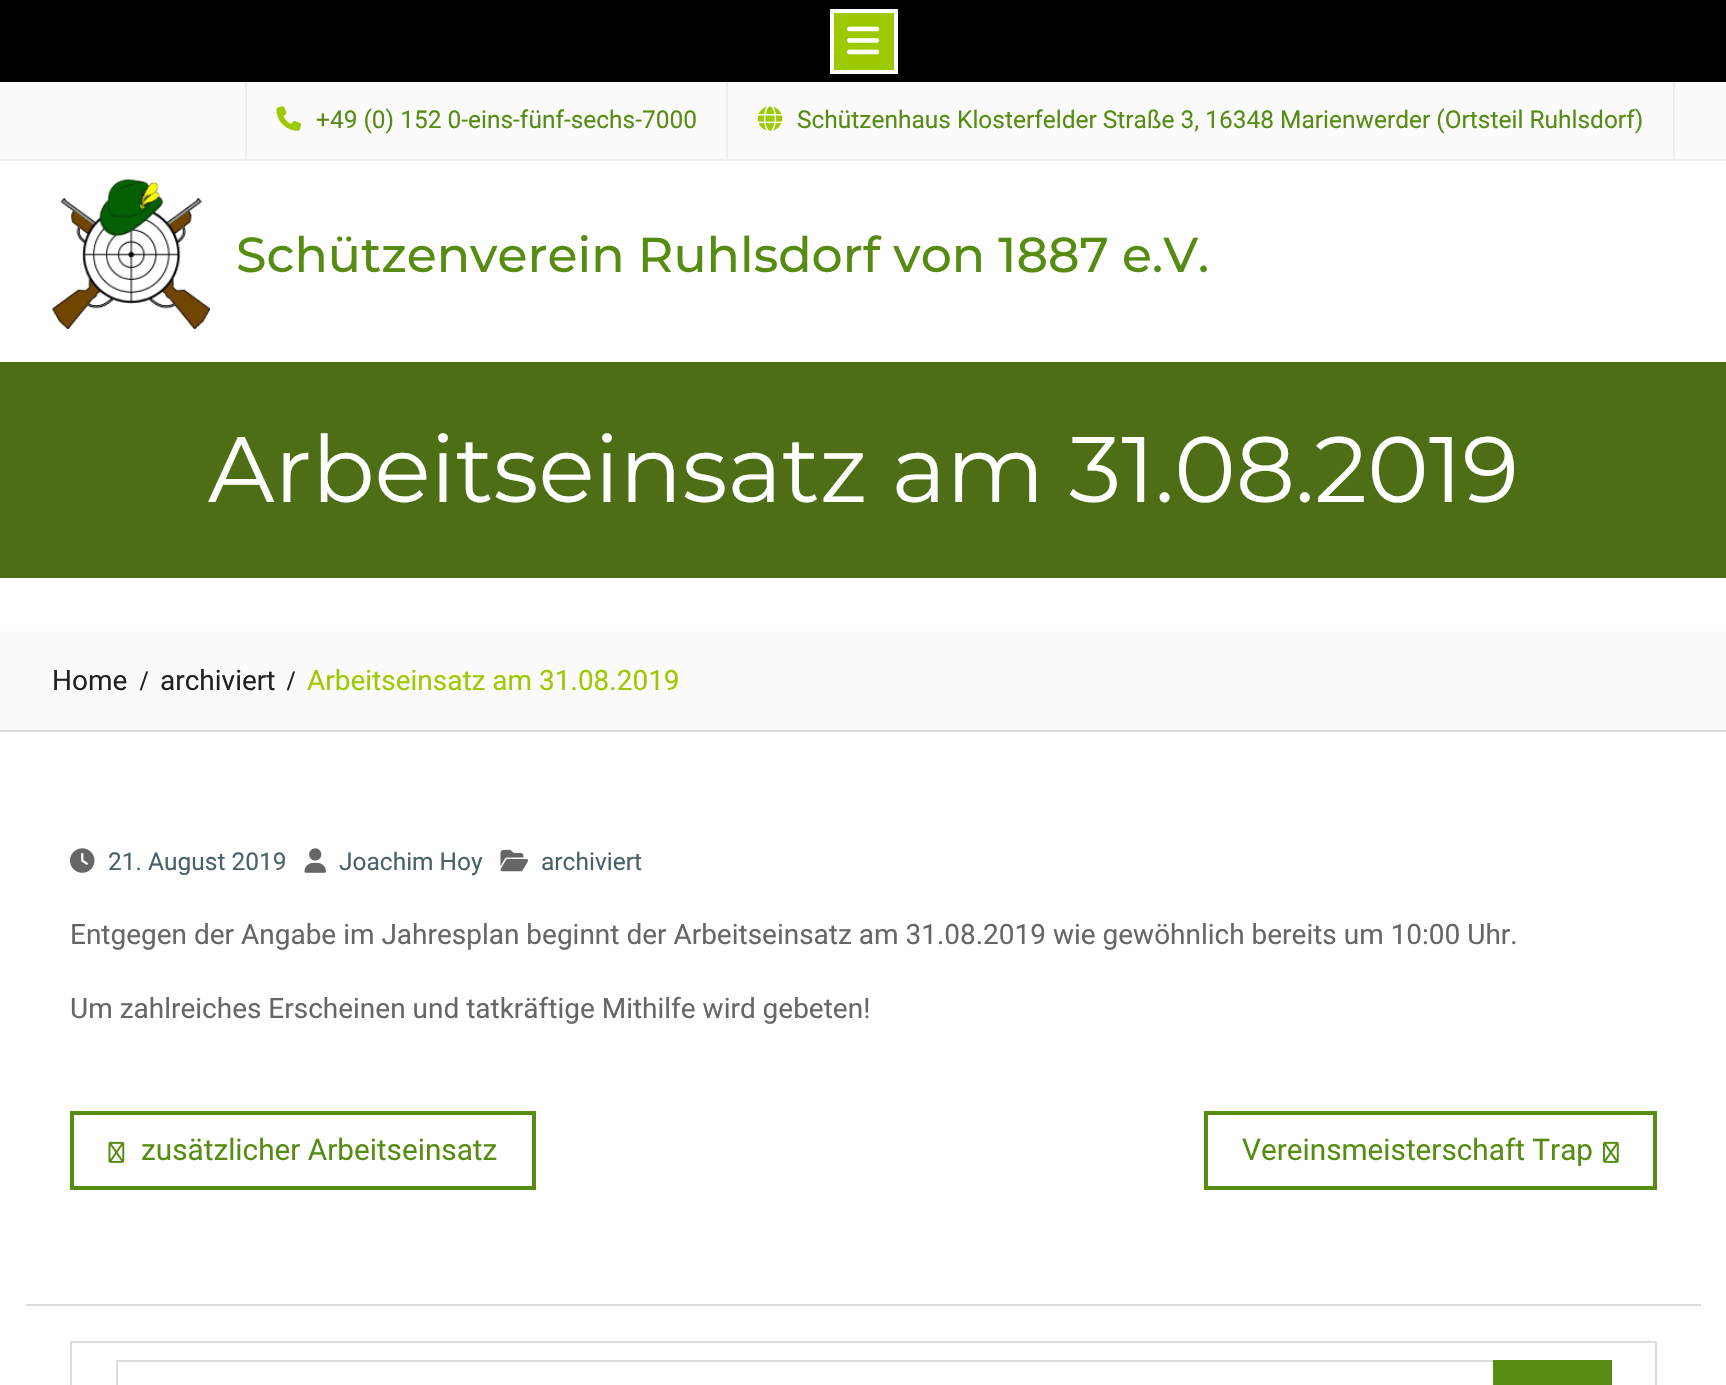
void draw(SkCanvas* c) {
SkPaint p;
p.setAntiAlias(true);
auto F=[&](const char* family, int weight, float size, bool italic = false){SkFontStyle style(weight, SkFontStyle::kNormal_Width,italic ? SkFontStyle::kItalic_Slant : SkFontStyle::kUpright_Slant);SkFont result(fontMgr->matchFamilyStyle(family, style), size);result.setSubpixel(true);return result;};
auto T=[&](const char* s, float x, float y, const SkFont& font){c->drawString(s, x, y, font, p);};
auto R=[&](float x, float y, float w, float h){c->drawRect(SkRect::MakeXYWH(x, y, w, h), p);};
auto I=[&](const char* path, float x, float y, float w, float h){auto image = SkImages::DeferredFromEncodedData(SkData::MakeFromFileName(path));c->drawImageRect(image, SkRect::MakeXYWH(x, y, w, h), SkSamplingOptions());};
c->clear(0xffffffff);
p.setColor(0xfffbfbfb);
R(0,82,1726,77);
p.setColor(0xffeeeeee);
R(726,79,2,80);
R(245,79,2,80);
R(1673,79,2,80);
p.setColor(0xff000000);
R(0,0,1726,82);
p.setColor(0xff9cc900);
c->drawRect(SkRect::MakeXYWH(832,11,64,61),p);
p.setStroke(true);
p.setStrokeWidth(4);
p.setColor(0xfffffffe);
c->drawRect(SkRect::MakeXYWH(832,11,64,61),p);
I("1.png",847,26,33,29);
p.setStroke(false);
p.setColor(0xffeeeeee);
R(0,159,1726,2);
I("2.png",276,106,25,25);
auto f1 = F("Roboto",400,24.5);
p.setColor(0xff568c11);
T("+49 (0) 152 0-eins-fünf-sechs-7000",316,128,f1);
I("3.png",757,106,26,25);
T("Schützenhaus Klosterfelder Straße 3, 16348 Marienwerder (Ortsteil Ruhlsdorf)",797,128,f1);
I("4.png",52,178,158,151);
auto f2 = F("Montserrat",500,49);
T("Schützenverein Ruhlsdorf von 1887 e.V.",236,272,f2);
p.setColor(0xff4e6e16);
R(0,362,1726,216);
auto f3 = F("Montserrat",400,92.75);
p.setColor(0xffffffff);
T("Arbeitseinsatz am 31.08.2019",208,502,f3);
p.setColor(0xfffbfbfb);
R(0,630,1726,100);
p.setColor(0xffdddddd);
R(0,730,1726,2);
auto f4 = F("Roboto",400,28);
p.setColor(0xff222222);
T("Home",52,690,f4);
auto f5 = F("Liberation Serif",700,28);
T("/",140,690,f5);
T("archiviert",160,690,f4);
T("/",287,690,f5);
p.setColor(0xff9cc900);
T("Arbeitseinsatz am 31.08.2019",307,690,f4);
p.setColor(0xffdddddd);
R(26,1304,1675,2);
I("5.png",70,848,25,25);
p.setColor(0xff49616b);
T("21. August 2019",108,870,f1);
I("6.png",304,848,22,25);
T("Joachim Hoy",339,870,f1);
I("7.png",500,849,28,23);
T("archiviert",541,870,f1);
p.setColor(0xff666666);
T("Entgegen der Angabe im Jahresplan beginnt der Arbeitseinsatz am 31.08.2019 wie gewöhnlich bereits um 10:00 Uhr.",70,944,f4);
T("Um zahlreiches Erscheinen und tatkräftige Mithilfe wird gebeten!",70,1018,f4);
p.setStroke(true);
p.setColor(0xff568c11);
c->drawRect(SkRect::MakeXYWH(72,1113,462,75),p);
I("8.png",108,1141,17,22);
auto f6 = F("Roboto",400,29.75);
p.setStroke(false);
T("zusätzlicher Arbeitseinsatz",141,1160,f6);
p.setStroke(true);
c->drawRect(SkRect::MakeXYWH(1206,1113,449,75),p);
p.setStroke(false);
T("Vereinsmeisterschaft Trap",1242,1160,f6);
I("9.png",1603,1141,16,22);
p.setStroke(true);
p.setStrokeWidth(2);
p.setColor(0xffdddddd);
c->drawRect(SkRect::MakeXYWH(71,1342,1585,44),p);
c->drawRect(SkRect::MakeXYWH(117,1361,1455,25),p);
p.setStroke(false);
p.setColor(0xff568c11);
R(1493,1360,119,25);
}
